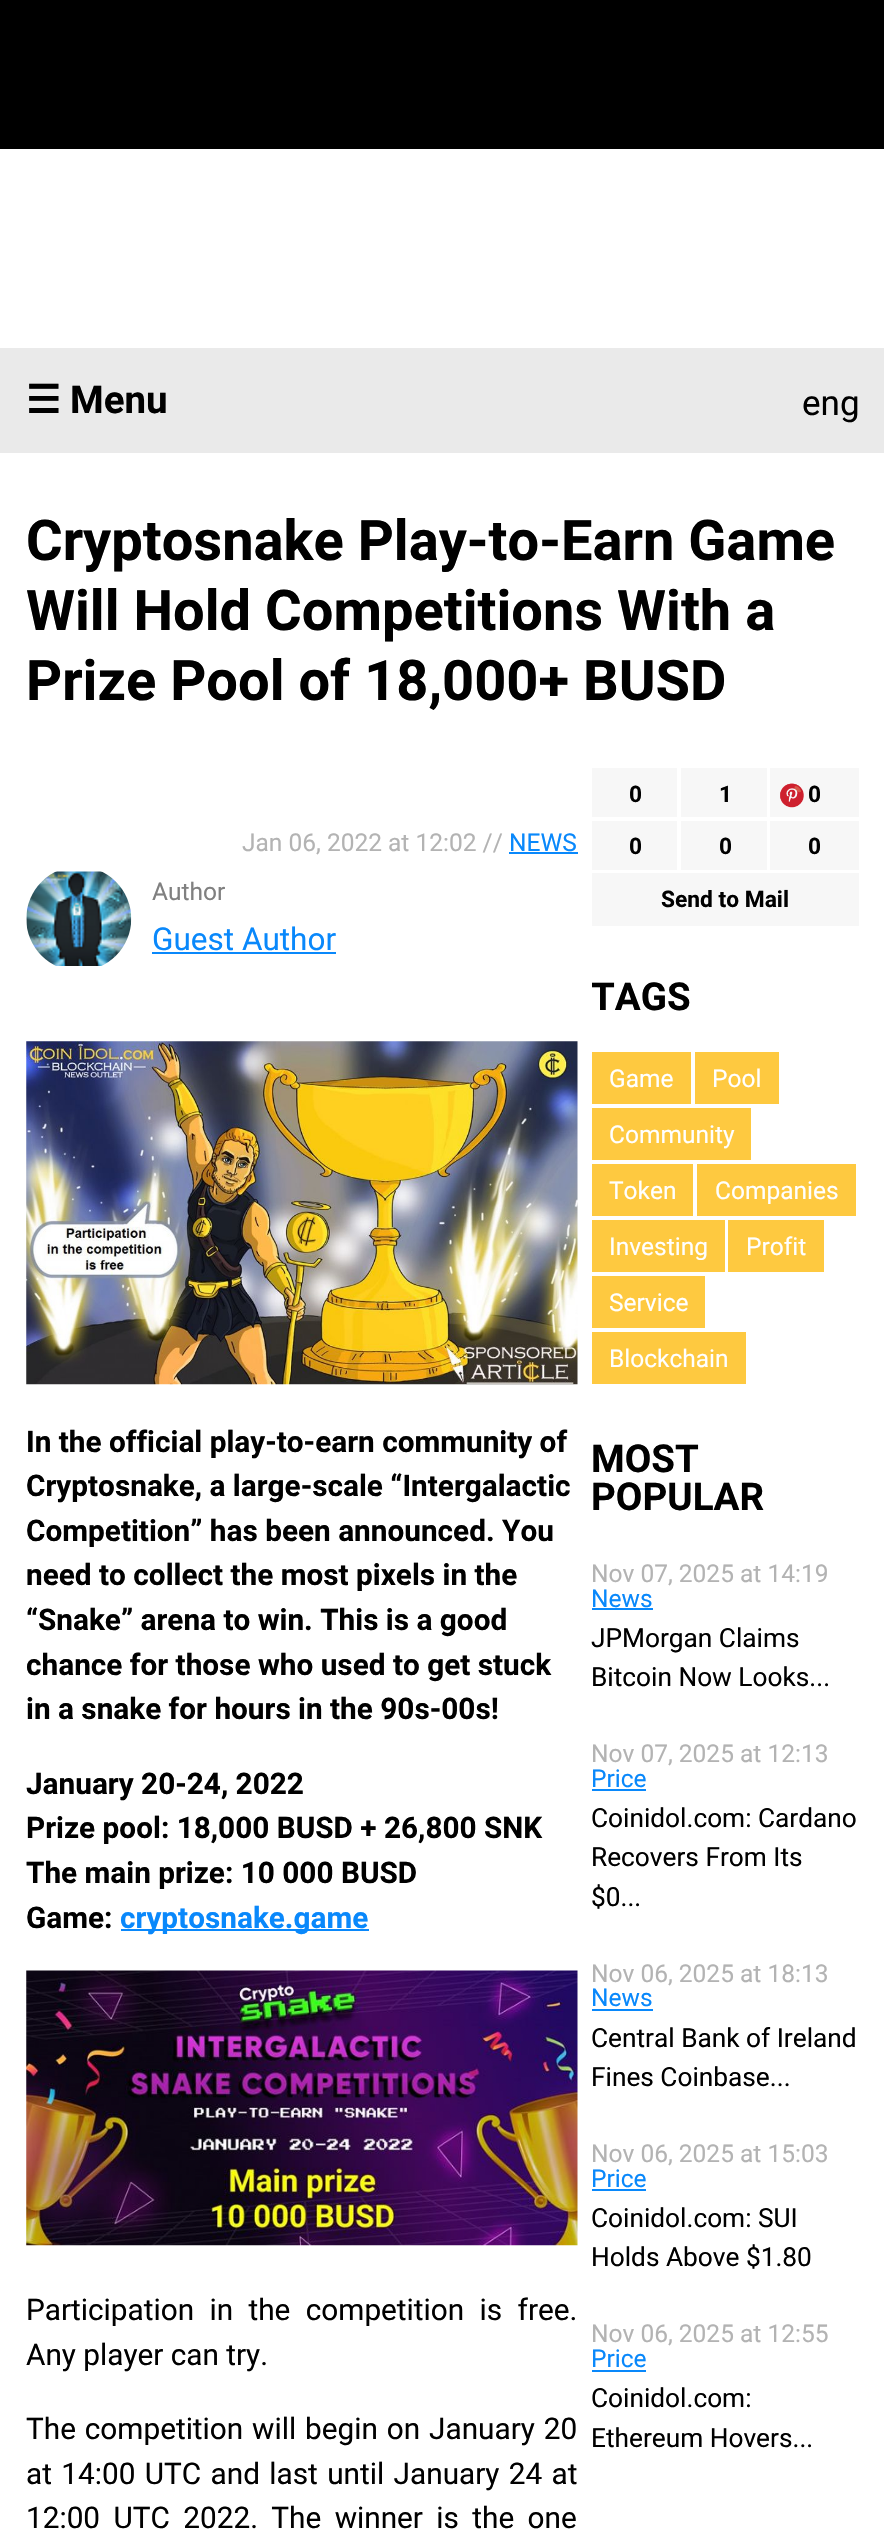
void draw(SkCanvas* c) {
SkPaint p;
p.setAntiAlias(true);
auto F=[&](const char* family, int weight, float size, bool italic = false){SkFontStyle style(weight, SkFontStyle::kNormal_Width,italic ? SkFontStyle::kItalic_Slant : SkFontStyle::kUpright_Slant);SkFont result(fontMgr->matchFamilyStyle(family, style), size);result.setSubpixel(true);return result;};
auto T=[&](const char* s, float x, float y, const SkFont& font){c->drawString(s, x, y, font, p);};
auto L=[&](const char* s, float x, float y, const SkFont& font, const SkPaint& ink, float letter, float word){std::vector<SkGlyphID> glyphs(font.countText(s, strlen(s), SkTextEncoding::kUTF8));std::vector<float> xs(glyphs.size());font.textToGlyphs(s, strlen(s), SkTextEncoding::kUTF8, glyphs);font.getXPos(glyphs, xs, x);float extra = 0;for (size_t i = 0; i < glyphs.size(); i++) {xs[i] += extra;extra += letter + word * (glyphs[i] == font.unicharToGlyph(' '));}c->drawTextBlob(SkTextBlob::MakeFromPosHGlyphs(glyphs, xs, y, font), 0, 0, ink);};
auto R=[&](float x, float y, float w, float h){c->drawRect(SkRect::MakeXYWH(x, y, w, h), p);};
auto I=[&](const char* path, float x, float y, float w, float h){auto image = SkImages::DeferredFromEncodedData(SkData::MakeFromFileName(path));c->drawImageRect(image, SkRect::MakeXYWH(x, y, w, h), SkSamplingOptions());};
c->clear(0xffffffff);
p.setColor(0xff000000);
R(0,0,884,149);
p.setColor(0xffeaeaea);
R(0,348,884,105);
auto f1 = F("DejaVu Sans",700,38.5);
p.setColor(0xff000000);
T("☰",26,413,f1);
auto f2 = F("Roboto",700,38.5);
T("Menu",70,413,f2);
auto f3 = F("Roboto",400,35);
T("eng",802,415,f3);
auto f4 = F("Roboto",700,56);
T("Cryptosnake Play-to-Earn Game",26,560,f4);
T("Will Hold Competitions With a",26,630,f4);
T("Prize Pool of 18,000+ BUSD",26,700,f4);
auto f5 = F("Roboto",400,24.5);
p.setColor(0xffb3b3b3);
T("Jan 06, 2022 at 12:02 //",242,851,f5);
p.setColor(0xff0988fb);
T("NEWS",509,851,f5);
R(509,852,69,2);
I("1.png",26,871,106,95);
p.setColor(0xff808080);
T("Author",152,900,f5);
auto f6 = F("Roboto",400,31.5);
p.setColor(0xff0988fb);
T("Guest Author",152,950,f6);
R(152,952,184,2);
I("2.png",26,1041,552,344);
auto f7 = F("Roboto",700,29.75);
p.setColor(0xff000000);
T("In the official play-to-earn community of",26,1452,f7);
T("Cryptosnake, a large-scale “Intergalactic",26,1496,f7);
T("Competition” has been announced. You",26,1541,f7);
T("need to collect the most pixels in the",26,1585,f7);
T("“Snake” arena to win. This is a good",26,1630,f7);
T("chance for those who used to get stuck",26,1675,f7);
T("in a snake for hours in the 90s-00s!",26,1719,f7);
T("January 20-24, 2022",26,1794,f7);
T("Prize pool: 18,000 BUSD + 26,800 SNK",26,1838,f7);
T("The main prize: 10 000 BUSD",26,1883,f7);
T("Game:",26,1928,f7);
p.setColor(0xff0988fb);
R(121,1929,248,2);
T("cryptosnake.game",120,1928,f7);
I("3.png",26,1970,552,276);
auto f8 = F("Roboto",400,29.75);
p.setColor(0xff000000);
L("Participation in the competition is free.",26,2320,f8,p,0,8);
T("Any player can try.",26,2365,f8);
L("The competition will begin on January 20",26,2439,f8,p,0,1.5);
L("at 14:00 UTC and last until January 24 at",26,2484,f8,p,0,2);
L("12:00 UTC 2022. The winner is the one",26,2528,f8,p,0,6);
p.setColor(0xfff7f7f7);
R(592,768,85,49);
auto f9 = F("Roboto",700,22.75);
p.setColor(0xff000000);
T("0",629,802,f9);
p.setColor(0xfff7f7f7);
R(681,768,86,49);
p.setColor(0xff000000);
T("1",719,802,f9);
p.setColor(0xfff7f7f7);
R(770,768,89,49);
I("4.png",780,783,24,25);
p.setColor(0xff000000);
T("0",808,802,f9);
p.setColor(0xfff7f7f7);
R(592,821,85,49);
p.setColor(0xff000000);
T("0",629,854,f9);
p.setColor(0xfff7f7f7);
R(681,821,86,49);
p.setColor(0xff000000);
T("0",719,854,f9);
p.setColor(0xfff7f7f7);
R(770,821,89,49);
p.setColor(0xff000000);
T("0",808,854,f9);
p.setColor(0xfff7f7f7);
R(592,873,267,53);
p.setColor(0xff000000);
T("Send to Mail",661,907,f9);
c->save();
c->clipRect(SkRect::MakeXYWH(592,978,267,410));
T("TAGS",591,1010,f2);
c->restore();
p.setColor(0xfffec940);
R(592,1052,99,52);
p.setColor(0xffffffff);
T("Game",609,1087,f5);
p.setColor(0xfffec940);
R(695,1052,84,52);
p.setColor(0xffffffff);
T("Pool",712,1087,f5);
p.setColor(0xfffec940);
R(592,1108,159,52);
p.setColor(0xffffffff);
T("Community",609,1143,f5);
p.setColor(0xfffec940);
R(592,1164,101,52);
p.setColor(0xffffffff);
T("Token",609,1199,f5);
p.setColor(0xfffec940);
R(697,1164,159,52);
p.setColor(0xffffffff);
T("Companies",715,1199,f5);
p.setColor(0xfffec940);
R(592,1220,133,52);
p.setColor(0xffffffff);
T("Investing",609,1255,f5);
p.setColor(0xfffec940);
R(728,1220,96,52);
p.setColor(0xffffffff);
T("Profit",746,1255,f5);
p.setColor(0xfffec940);
R(592,1276,113,52);
p.setColor(0xffffffff);
T("Service",609,1311,f5);
p.setColor(0xfffec940);
R(592,1332,154,52);
p.setColor(0xffffffff);
T("Blockchain",609,1367,f5);
p.setColor(0xff000000);
T("MOST",591,1472,f2);
T("POPULAR",591,1510,f2);
p.setColor(0xffb3b3b3);
T("Nov 07, 2025 at 14:19",591,1582,f5);
p.setColor(0xff0988fb);
T("News",591,1607,f5);
R(592,1608,61,2);
auto f10 = F("Roboto",400,26.25);
p.setColor(0xff000000);
T("JPMorgan Claims",591,1647,f10);
T("Bitcoin Now Looks...",591,1686,f10);
p.setColor(0xffb3b3b3);
T("Nov 07, 2025 at 12:13",591,1762,f5);
p.setColor(0xff0988fb);
T("Price",591,1787,f5);
R(592,1789,54,2);
p.setColor(0xff000000);
T("Coinidol.com: Cardano",591,1827,f10);
T("Recovers From Its",591,1866,f10);
T("$0...",591,1906,f10);
p.setColor(0xffb3b3b3);
T("Nov 06, 2025 at 18:13",591,1982,f5);
p.setColor(0xff0988fb);
T("News",591,2006,f5);
R(592,2009,61,2);
p.setColor(0xff000000);
T("Central Bank of Ireland",591,2047,f10);
T("Fines Coinbase...",591,2086,f10);
p.setColor(0xffb3b3b3);
T("Nov 06, 2025 at 15:03",591,2162,f5);
p.setColor(0xff0988fb);
T("Price",591,2187,f5);
R(592,2189,54,2);
p.setColor(0xff000000);
T("Coinidol.com: SUI",591,2227,f10);
T("Holds Above $1.80",591,2266,f10);
p.setColor(0xffb3b3b3);
T("Nov 06, 2025 at 12:55",591,2342,f5);
p.setColor(0xff0988fb);
T("Price",591,2367,f5);
R(592,2370,54,2);
p.setColor(0xff000000);
T("Coinidol.com:",591,2407,f10);
T("Ethereum Hovers...",591,2447,f10);
}
